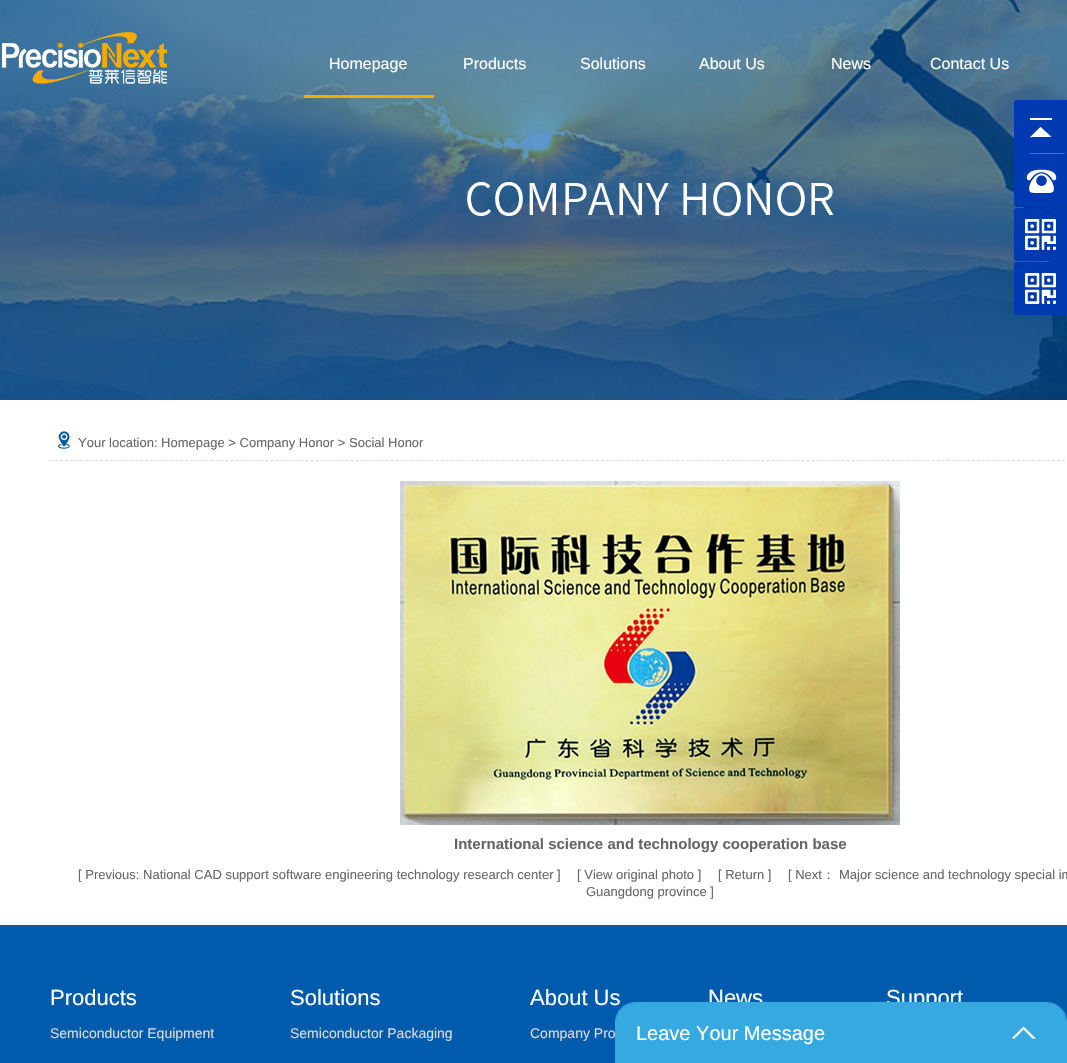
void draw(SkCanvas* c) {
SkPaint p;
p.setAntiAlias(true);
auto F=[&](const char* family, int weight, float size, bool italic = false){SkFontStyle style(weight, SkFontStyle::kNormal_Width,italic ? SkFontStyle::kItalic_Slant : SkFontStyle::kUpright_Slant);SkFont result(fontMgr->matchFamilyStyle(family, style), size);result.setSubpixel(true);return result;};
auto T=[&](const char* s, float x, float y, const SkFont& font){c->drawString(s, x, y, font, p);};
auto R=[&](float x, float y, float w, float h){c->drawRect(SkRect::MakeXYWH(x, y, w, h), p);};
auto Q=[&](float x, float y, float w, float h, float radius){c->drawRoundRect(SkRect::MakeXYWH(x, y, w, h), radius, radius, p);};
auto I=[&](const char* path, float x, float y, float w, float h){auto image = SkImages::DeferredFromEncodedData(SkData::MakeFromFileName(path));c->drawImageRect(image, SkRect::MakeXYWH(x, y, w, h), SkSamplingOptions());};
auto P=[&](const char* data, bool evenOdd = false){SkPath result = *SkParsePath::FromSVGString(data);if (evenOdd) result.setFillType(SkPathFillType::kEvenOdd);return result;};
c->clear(0xffffffff);
I("1.png",0,0,1067,400);
I("2.png",2,32,165,52);
p.setColor(0xfff7ab00);
R(304,95,130,3);
auto f1 = F("Liberation Sans",400,16);
p.setColor(0xffffffff);
T("Homepage",329,69,f1);
T("Products",463,69,f1);
T("Solutions",580,69,f1);
T("About Us",699,69,f1);
T("News",831,69,f1);
T("Contact Us",930,69,f1);
p.setColor(0xff003ab0);
Q(1014,100,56,53,3);
I("3.png",1030,118,22,20);
Q(1014,154,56,53,3);
I("4.png",1026,169,31,24);
Q(1014,208,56,53,3);
I("5.png",1025,219,31,31);
Q(1014,262,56,53,3);
I("5.png",1025,273,31,31);
p.setStroke(true);
p.setStrokeWidth(1);
p.setColor(0xffdddddd);
p.setPathEffect(SkDashPathEffect::Make({{3,2.01f}}, 0));
c->drawPath(P("M50 460.5h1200"),p);
p.setPathEffect(nullptr);
I("6.png",58,431,12,18);
auto f2 = F("Liberation Sans",400,13);
p.setStroke(false);
p.setColor(0xff666666);
T("Your location: Homepage > Company Honor > Social Honor",78,447,f2);
I("7.png",400,481,500,344);
auto f3 = F("Liberation Sans",700,15);
T("International science and technology cooperation base",454,849,f3);
T("[ Previous: National CAD support software engineering technology research center ]",78,879,f2);
T("[ View original photo ]",577,879,f2);
T("[ Return ]",718,879,f2);
T("[ Next",788,879,f2);
auto f4 = F("WenQuanYi Zen Hei",500,13);
T("：",822,879,f4);
T("Major science and technology special im",839,879,f2);
T("Guangdong province ]",586,896,f2);
p.setColor(0xff005bac);
R(0,925,1067,138);
auto f5 = F("Liberation Sans",400,22);
p.setColor(0xffffffff);
T("Products",50,1005,f5);
auto f6 = F("Liberation Sans",400,14);
p.setColor(0xffdbdbdb);
T("Semiconductor Equipment",50,1038,f6);
p.setColor(0xffffffff);
T("Solutions",290,1005,f5);
p.setColor(0xffdbdbdb);
T("Semiconductor Packaging",290,1038,f6);
p.setColor(0xffffffff);
T("About Us",530,1005,f5);
p.setColor(0xffdbdbdb);
T("Company Pro",530,1038,f6);
p.setColor(0xffffffff);
T("News",708,1005,f5);
T("Support",886,1005,f5);
p.setStroke(true);
p.setColor(0xff36a9e1);
c->drawRoundRect(SkRect::MakeXYWH(615.5,1002.5,451,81),19.5,19.5,p);
p.setStroke(false);
c->drawPath(P("M635 1003h412c10.5 0 19 8.5 19 19v41h-450v-41c0-10.5 8.5-19 19-19z"),p);
auto f7 = F("Liberation Sans",400,20);
p.setColor(0xffffffff);
T("Leave Your Message",636,1040,f7);
c->drawPath(P("M1014.5 1038.5l9-9l9 9h3.5l-12.5-12l-12 12z"),p);
}
